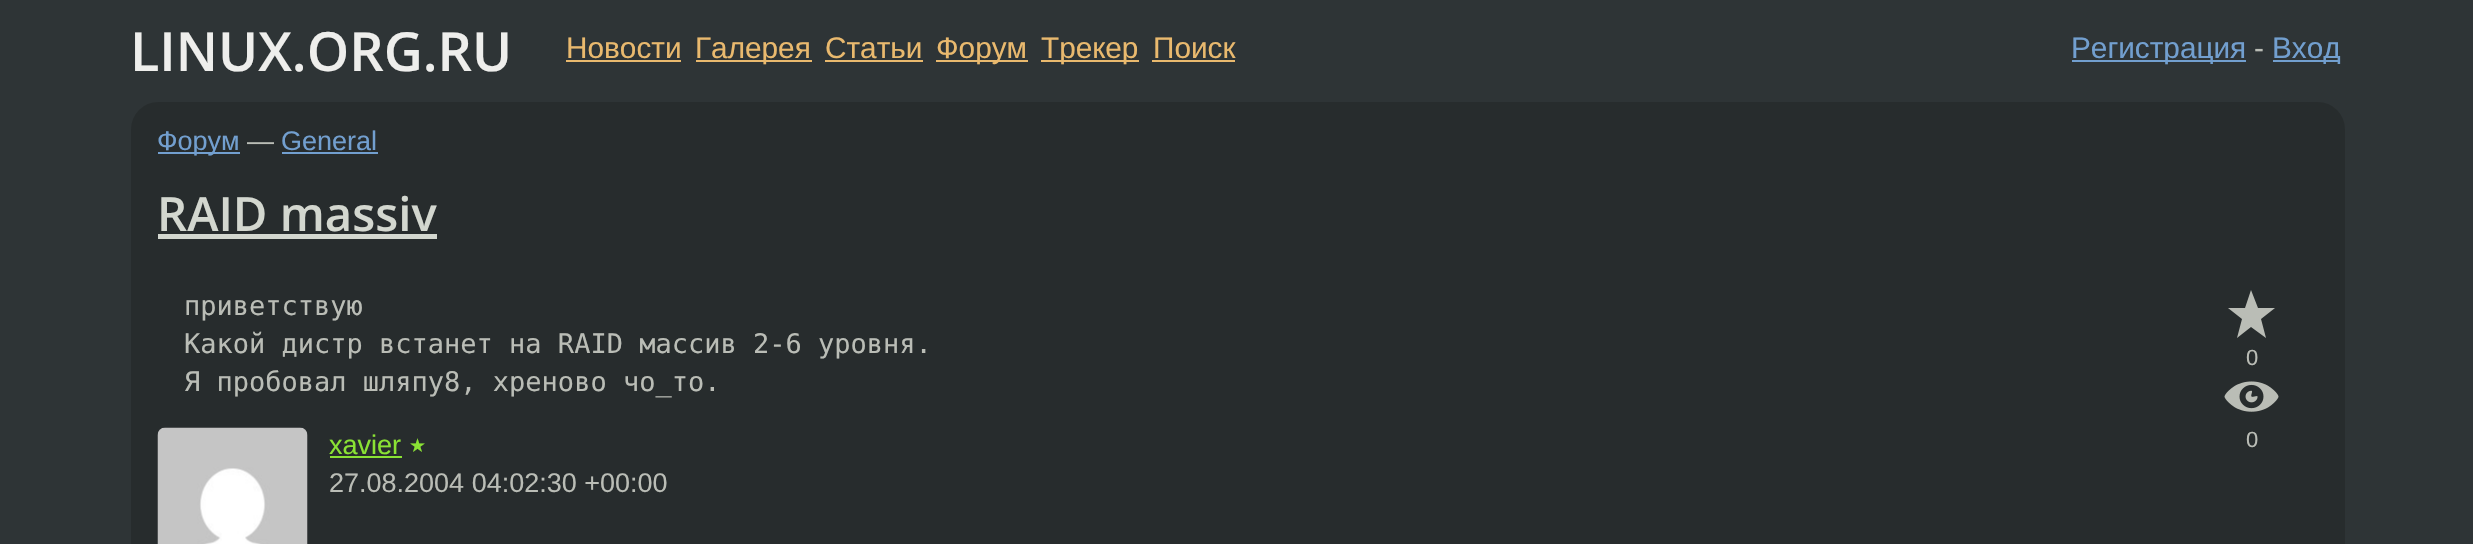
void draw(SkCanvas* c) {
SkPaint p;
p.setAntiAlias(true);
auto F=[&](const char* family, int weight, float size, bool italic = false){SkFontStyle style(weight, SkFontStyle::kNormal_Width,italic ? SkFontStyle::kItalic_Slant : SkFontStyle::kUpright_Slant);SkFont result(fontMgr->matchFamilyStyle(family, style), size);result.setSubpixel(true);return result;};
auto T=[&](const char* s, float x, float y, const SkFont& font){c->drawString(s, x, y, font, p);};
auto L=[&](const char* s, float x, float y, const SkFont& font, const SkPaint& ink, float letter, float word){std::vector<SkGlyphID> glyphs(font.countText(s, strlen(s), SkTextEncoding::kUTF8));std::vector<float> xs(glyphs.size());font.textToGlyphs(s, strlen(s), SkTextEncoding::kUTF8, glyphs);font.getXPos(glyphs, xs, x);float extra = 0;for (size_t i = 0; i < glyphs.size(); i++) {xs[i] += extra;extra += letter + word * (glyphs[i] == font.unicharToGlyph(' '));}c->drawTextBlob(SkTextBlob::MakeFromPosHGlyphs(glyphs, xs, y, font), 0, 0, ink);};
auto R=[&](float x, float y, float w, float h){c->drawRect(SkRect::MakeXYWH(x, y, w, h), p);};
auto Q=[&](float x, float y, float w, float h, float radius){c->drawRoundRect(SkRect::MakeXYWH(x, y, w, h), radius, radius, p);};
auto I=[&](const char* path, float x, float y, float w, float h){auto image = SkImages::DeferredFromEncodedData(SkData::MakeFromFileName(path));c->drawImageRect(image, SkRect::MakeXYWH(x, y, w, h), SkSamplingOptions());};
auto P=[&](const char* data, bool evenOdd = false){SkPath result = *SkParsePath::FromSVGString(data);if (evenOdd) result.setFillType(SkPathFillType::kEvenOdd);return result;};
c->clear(0xff2e3436);
auto f1 = F("Open Sans",600,54);
p.setColor(0xffeeeeec);
T("LINUX.ORG.RU",130,71,f1);
auto f2 = F("Liberation Sans",400,29.75);
p.setColor(0xffe9b96e);
T("Новости",566,58,f2);
R(566,60,115,2);
R(696,60,116,2);
T("Галерея",695,58,f2);
T("Статьи",825,58,f2);
R(825,60,98,2);
R(936,60,92,2);
T("Форум",936,58,f2);
R(1041,60,98,2);
T("Трекер",1041,58,f2);
T("Поиск",1153,58,f2);
R(1152,60,83,2);
p.setColor(0xff729fcf);
R(2072,60,174,2);
T("Регистрация",2071,58,f2);
p.setColor(0xffbabdb6);
T("-",2254,58,f2);
p.setColor(0xff729fcf);
R(2273,60,67,2);
T("Вход",2272,58,f2);
p.setColor(0xff272c2d);
Q(131,102,2214,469,27);
p.setColor(0xff729fcf);
R(158,152,82,2);
auto f3 = F("Liberation Sans",400,27);
T("Форум",157,150,f3);
p.setColor(0xffbabdb6);
T("—",247,150,f3);
p.setColor(0xff729fcf);
T("General",281,150,f3);
R(282,152,96,2);
auto f4 = F("Open Sans",600,47.25);
p.setColor(0xffd3d7cf);
T("RAID massiv",157,231,f4);
R(158,234,279,5);
auto f5 = F("DejaVu Sans Mono",400,27);
p.setColor(0xffbabdb6);
T("приветствую",184,315,f5);
T("Какой дистр встанет на RAID массив 2-6 уровня.",184,353,f5);
T("Я пробовал шляпу8, хреново чо_то.",184,391,f5);
c->drawPath(P("M2251 290l7 18h17l-14 11l5 19l-15-11l-14 11l5-19l-14-11h17z"),p);
auto f6 = F("Liberation Sans",400,22);
T("0",2246,365,f6);
I("1.png",2224,381,55,31);
T("0",2246,447,f6);
I("2.png",157,427,151,117);
p.setColor(0xff8ae234);
T("xavier",329,454,f3);
R(330,456,72,2);
auto f7 = F("DejaVu Sans",400,19);
L("★",409,452,f7,p,3,0);
p.setColor(0xffbabdb6);
T("27.08.2004 04:02:30 +00:00",329,492,f3);
}
